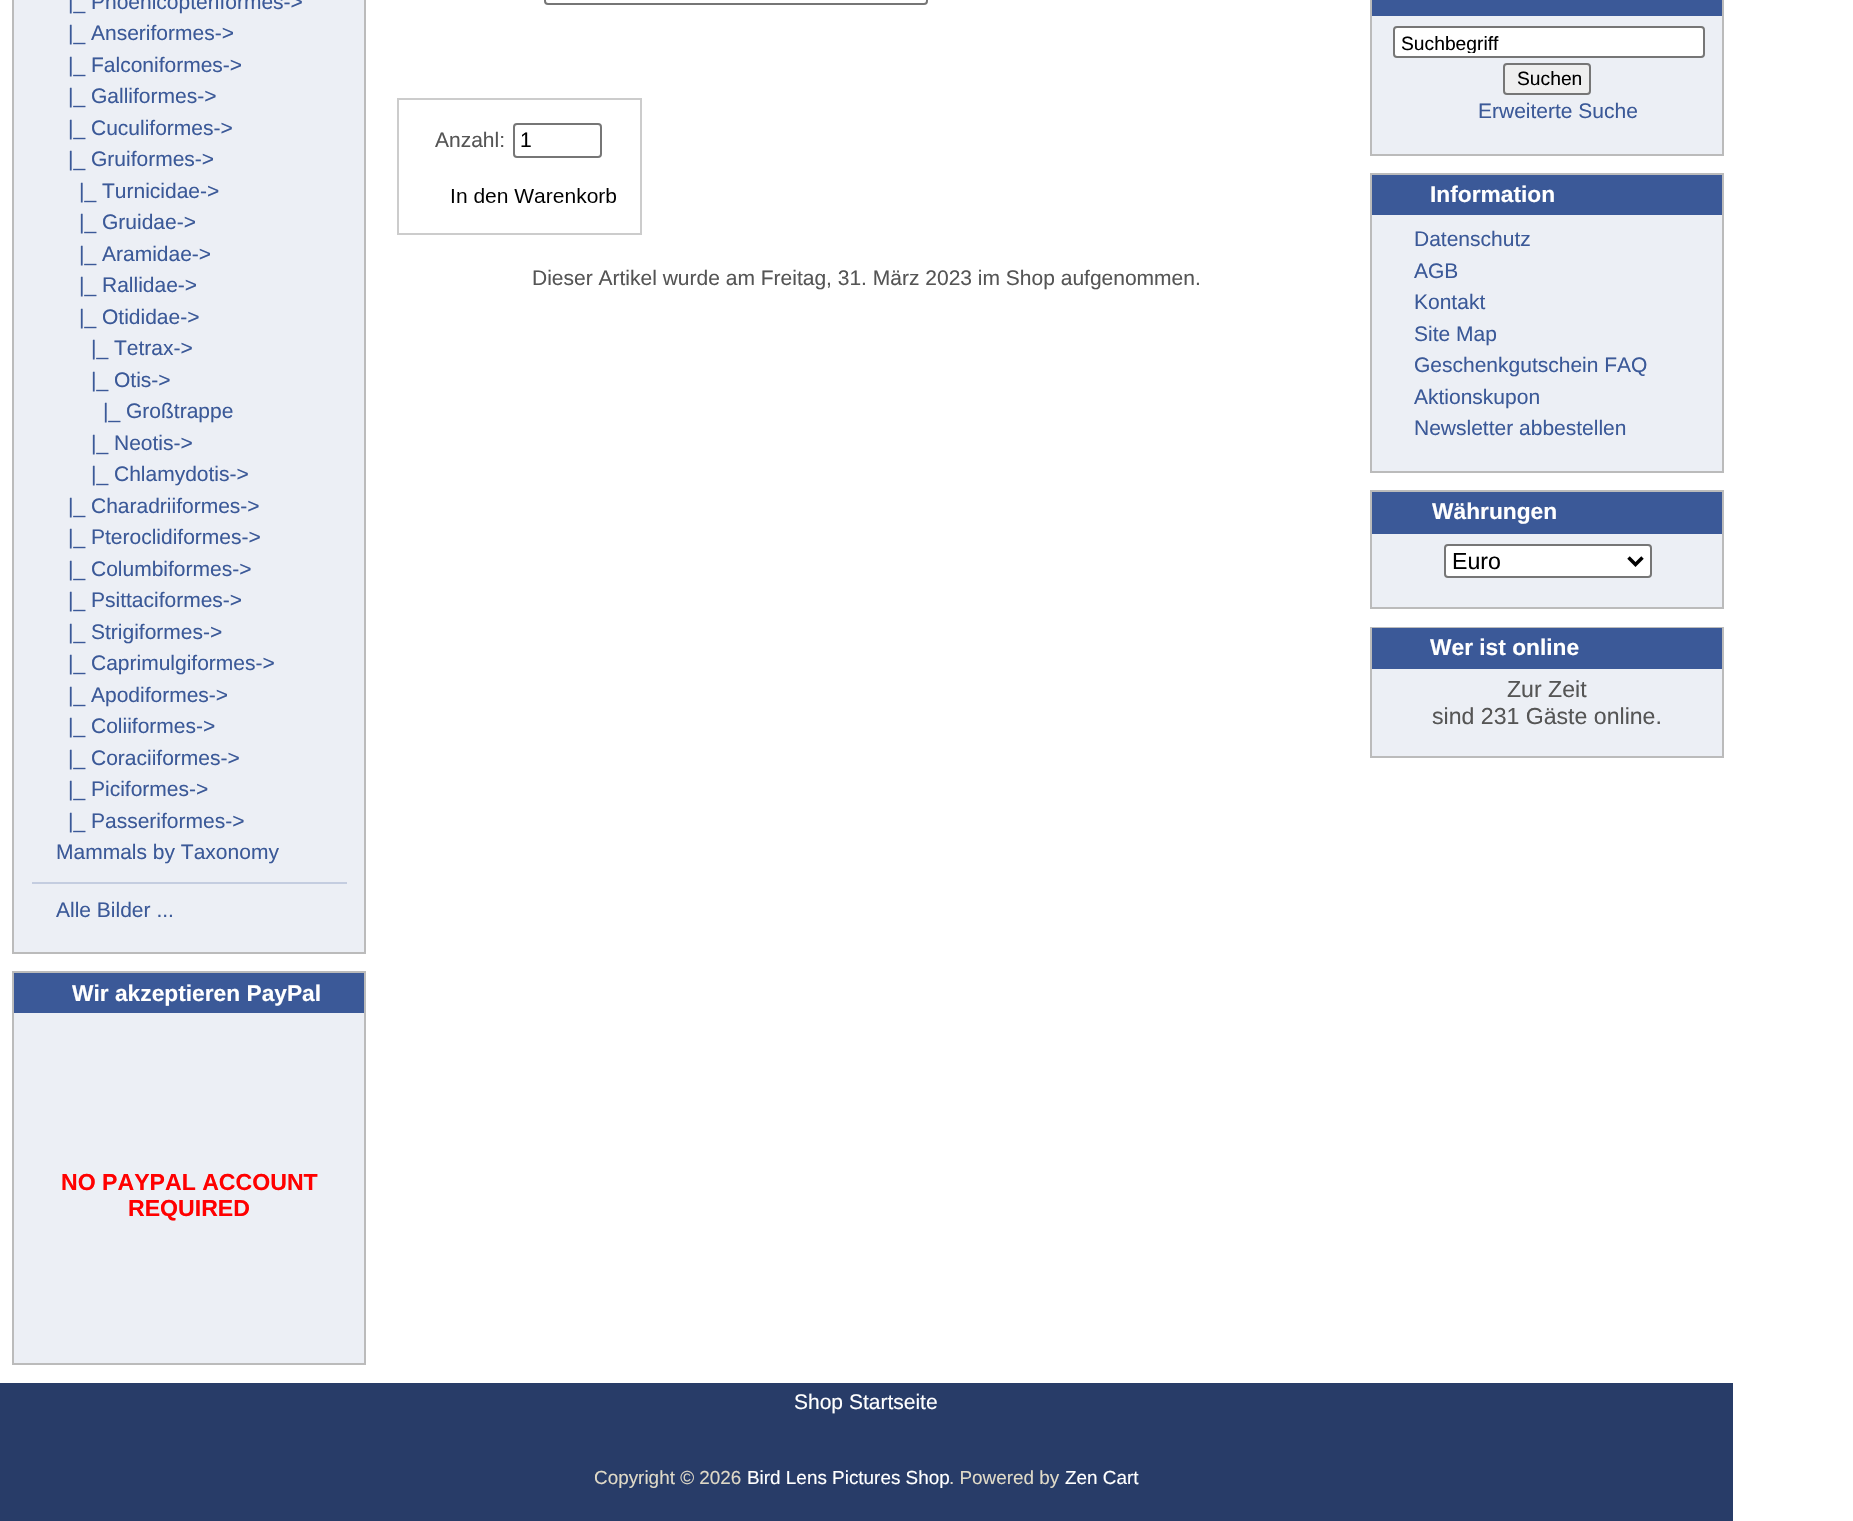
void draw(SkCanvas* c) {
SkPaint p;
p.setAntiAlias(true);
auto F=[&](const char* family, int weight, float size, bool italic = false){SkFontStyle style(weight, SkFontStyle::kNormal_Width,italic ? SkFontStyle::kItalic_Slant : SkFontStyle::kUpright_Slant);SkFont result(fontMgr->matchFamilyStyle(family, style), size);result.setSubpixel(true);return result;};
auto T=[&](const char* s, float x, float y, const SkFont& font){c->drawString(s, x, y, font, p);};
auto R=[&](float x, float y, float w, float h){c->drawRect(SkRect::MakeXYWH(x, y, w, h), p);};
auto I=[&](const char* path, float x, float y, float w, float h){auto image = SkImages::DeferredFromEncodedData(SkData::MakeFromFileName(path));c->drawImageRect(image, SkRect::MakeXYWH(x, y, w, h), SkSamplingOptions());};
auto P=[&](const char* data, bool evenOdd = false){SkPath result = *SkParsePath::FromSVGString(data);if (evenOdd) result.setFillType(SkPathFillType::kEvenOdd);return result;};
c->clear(0xffffffff);
p.setColor(0xffeceff5);
c->drawRect(SkRect::MakeXYWH(13,-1,352,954),p);
p.setStroke(true);
p.setStrokeWidth(2);
p.setColor(0xffbbbbbb);
c->drawRect(SkRect::MakeXYWH(13,-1,352,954),p);
auto f1 = F("Liberation Sans",400,21);
p.setStroke(false);
p.setColor(0xff3b5998);
T("|_ Phoenicopteriformes->",68,9,f1);
T("|_ Anseriformes->",68,40,f1);
T("|_ Falconiformes->",68,72,f1);
T("|_ Galliformes->",68,103,f1);
T("|_ Cuculiformes->",68,135,f1);
T("|_ Gruiformes->",68,166,f1);
T("|_ Turnicidae->",79,198,f1);
T("|_ Gruidae->",79,229,f1);
T("|_ Aramidae->",79,261,f1);
T("|_ Rallidae->",79,292,f1);
T("|_ Otididae->",79,324,f1);
T("|_ Tetrax->",91,355,f1);
T("|_ Otis->",91,387,f1);
T("|_ Großtrappe",103,418,f1);
T("|_ Neotis->",91,450,f1);
T("|_ Chlamydotis->",91,481,f1);
T("|_ Charadriiformes->",68,513,f1);
T("|_ Pteroclidiformes->",68,544,f1);
T("|_ Columbiformes->",68,576,f1);
T("|_ Psittaciformes->",68,607,f1);
T("|_ Strigiformes->",68,639,f1);
T("|_ Caprimulgiformes->",68,670,f1);
T("|_ Apodiformes->",68,702,f1);
T("|_ Coliiformes->",68,733,f1);
T("|_ Coraciiformes->",68,765,f1);
T("|_ Piciformes->",68,796,f1);
T("|_ Passeriformes->",68,828,f1);
T("Mammals by Taxonomy",56,859,f1);
p.setColor(0xffc4cde0);
R(32,882,315,2);
p.setColor(0xff3b5998);
T("Alle Bilder ...",56,917,f1);
p.setColor(0xffeceff5);
R(14,1013,350,350);
p.setStroke(true);
p.setColor(0xffbbbbbb);
c->drawRect(SkRect::MakeXYWH(13,972,352,392),p);
p.setStroke(false);
p.setColor(0xff3b5998);
R(14,973,350,40);
auto f2 = F("Liberation Sans",700,22.75);
p.setColor(0xffffffff);
T("Wir akzeptieren PayPal",72,1001,f2);
auto f3 = F("Liberation Sans",700,23.1);
p.setColor(0xffff0000);
T("NO PAYPAL ACCOUNT",61,1190,f3);
T("REQUIRED",128,1216,f3);
p.setStroke(true);
p.setColor(0xff767676);
c->drawRoundRect(SkRect::MakeXYWH(545,-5,382,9),3,3,p);
p.setColor(0xffcccccc);
c->drawRect(SkRect::MakeXYWH(398,99,243,135),p);
p.setStroke(false);
p.setColor(0xff555555);
T("Anzahl:",435,147,f1);
p.setStroke(true);
p.setColor(0xff767676);
c->drawRoundRect(SkRect::MakeXYWH(514,124,87,33),3,3,p);
p.setStroke(false);
p.setColor(0xff000000);
T("1",520,147,f1);
I("1.png",451,188,165,15);
p.setColor(0xff555555);
T("Dieser Artikel wurde am Freitag, 31. März 2023 im Shop aufgenommen.",532,285,f1);
p.setColor(0xffeceff5);
R(1372,16,350,138);
p.setStroke(true);
p.setColor(0xffbbbbbb);
c->drawRect(SkRect::MakeXYWH(1371,-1,352,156),p);
p.setStroke(false);
p.setColor(0xff3b5998);
R(1372,0,350,16);
p.setColor(0xffffffff);
c->drawRoundRect(SkRect::MakeXYWH(1394,27,310,30),3,3,p);
p.setStroke(true);
p.setColor(0xff767676);
c->drawRoundRect(SkRect::MakeXYWH(1394,27,310,30),3,3,p);
c->save();
c->clipRect(SkRect::MakeXYWH(1400,32,298,21));
auto f4 = F("Liberation Sans",400,19.25);
p.setStroke(false);
p.setColor(0xff000000);
T("Suchbegriff",1401,50,f4);
c->restore();
p.setColor(0xffefefef);
c->drawRoundRect(SkRect::MakeXYWH(1504,64,86,30),3,3,p);
p.setStroke(true);
p.setColor(0xff767676);
c->drawRoundRect(SkRect::MakeXYWH(1504,64,86,30),3,3,p);
p.setStroke(false);
p.setColor(0xff000000);
T("Suchen",1517,85,f4);
p.setColor(0xff3b5998);
T("Erweiterte Suche",1478,118,f1);
p.setColor(0xffeceff5);
R(1372,215,350,256);
p.setStroke(true);
p.setColor(0xffbbbbbb);
c->drawRect(SkRect::MakeXYWH(1371,174,352,298),p);
p.setStroke(false);
p.setColor(0xff3b5998);
R(1372,175,350,40);
p.setColor(0xffffffff);
T("Information",1430,202,f2);
p.setColor(0xff3b5998);
T("Datenschutz",1414,246,f1);
T("AGB",1414,278,f1);
T("Kontakt",1414,309,f1);
T("Site Map",1414,341,f1);
T("Geschenkgutschein FAQ",1414,372,f1);
T("Aktionskupon",1414,404,f1);
T("Newsletter abbestellen",1414,435,f1);
p.setColor(0xffeceff5);
R(1372,534,350,73);
p.setStroke(true);
p.setColor(0xffbbbbbb);
c->drawRect(SkRect::MakeXYWH(1371,491,352,117),p);
p.setStroke(false);
p.setColor(0xff3b5998);
R(1372,492,350,42);
p.setColor(0xffffffff);
T("Währungen",1432,519,f2);
c->drawRoundRect(SkRect::MakeXYWH(1445,545,206,32),3,3,p);
p.setStroke(true);
p.setColor(0xff767676);
c->drawRoundRect(SkRect::MakeXYWH(1445,545,206,32),3,3,p);
p.setStrokeWidth(3.5);
p.setColor(0xff000000);
c->drawPath(P("M1628.5 557.5l7 7l7-7"),p);
auto f5 = F("Liberation Sans",400,23.1);
p.setStroke(false);
T("Euro",1452,569,f5);
p.setColor(0xffeceff5);
R(1372,669,350,87);
p.setStroke(true);
p.setStrokeWidth(2);
p.setColor(0xffbbbbbb);
c->drawRect(SkRect::MakeXYWH(1371,628,352,129),p);
p.setStroke(false);
p.setColor(0xff3b5998);
R(1372,628,350,41);
p.setColor(0xffffffff);
T("Wer ist online",1430,655,f2);
p.setColor(0xff555555);
T("Zur Zeit",1507,697,f5);
T("sind 231 Gäste online.",1432,724,f5);
p.setColor(0xff283c68);
R(0,1383,1733,138);
p.setColor(0xffffffff);
T("Shop Startseite",794,1409,f1);
auto f6 = F("Liberation Sans",400,18.9);
p.setColor(0xffdfd9c7);
T("Copyright © 2026",594,1484,f6);
p.setColor(0xffffffff);
T("Bird Lens Pictures Shop",747,1484,f6);
p.setColor(0xffdfd9c7);
T(". Powered by",949,1484,f6);
p.setColor(0xffffffff);
T("Zen Cart",1065,1484,f6);
}
